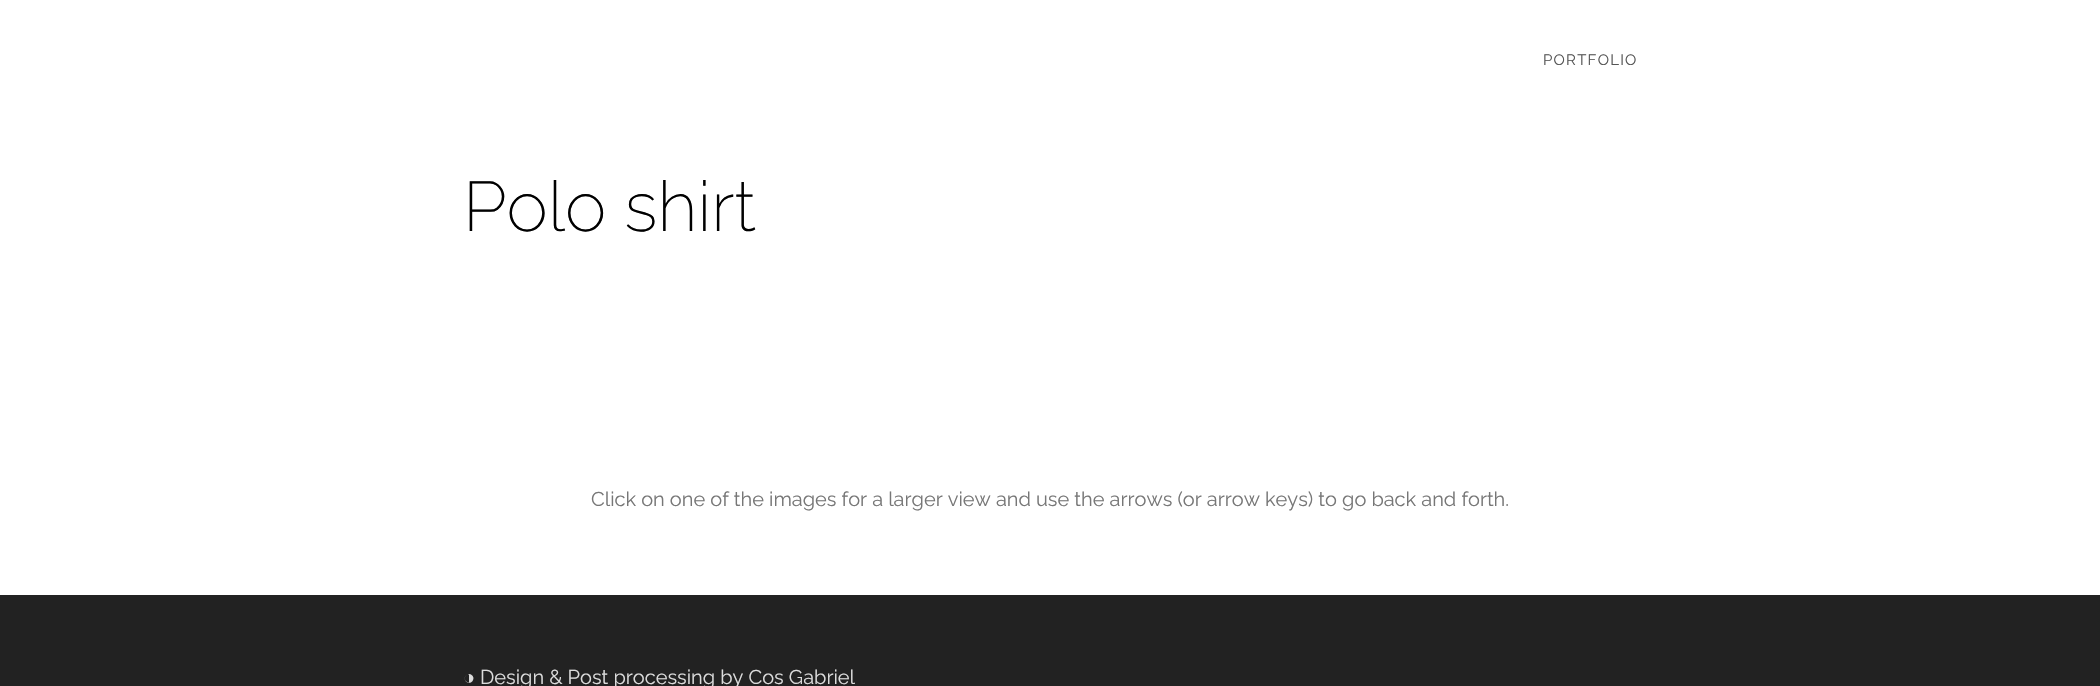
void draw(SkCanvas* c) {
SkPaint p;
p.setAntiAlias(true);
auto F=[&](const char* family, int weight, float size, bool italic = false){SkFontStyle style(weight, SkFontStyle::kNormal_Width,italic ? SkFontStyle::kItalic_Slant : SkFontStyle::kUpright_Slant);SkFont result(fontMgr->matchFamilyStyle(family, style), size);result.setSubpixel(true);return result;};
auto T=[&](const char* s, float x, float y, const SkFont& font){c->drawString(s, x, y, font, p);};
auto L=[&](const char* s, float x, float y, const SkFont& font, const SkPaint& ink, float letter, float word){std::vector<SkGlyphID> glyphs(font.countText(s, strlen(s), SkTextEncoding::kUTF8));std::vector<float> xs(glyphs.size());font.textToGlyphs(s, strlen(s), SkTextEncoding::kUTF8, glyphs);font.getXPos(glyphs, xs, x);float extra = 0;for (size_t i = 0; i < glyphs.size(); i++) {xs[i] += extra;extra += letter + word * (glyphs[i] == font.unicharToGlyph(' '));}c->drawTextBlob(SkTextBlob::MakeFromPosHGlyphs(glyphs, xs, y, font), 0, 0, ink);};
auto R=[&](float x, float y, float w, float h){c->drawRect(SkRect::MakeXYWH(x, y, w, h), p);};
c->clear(0xffffffff);
auto f1 = F("Raleway",400,15);
p.setColor(0xff555555);
L("PORTFOLIO",1543,65,f1,p,1.25,0);
auto f2 = F("Raleway",200,70);
p.setColor(0xff000000);
T("Polo shirt",463,231,f2);
auto f3 = F("Raleway",400,20);
p.setColor(0xff777777);
T("Click on one of the images for a larger view and use the arrows (or arrow keys) to go back and forth.",591,506,f3);
p.setColor(0xff222222);
R(0,595,2100,91);
auto f4 = F("Liberation Sans",400,20);
p.setColor(0xffdcdcdc);
T("◑",463,684,f4);
T("Design & Post processing by Cos Gabriel",480,684,f3);
}
